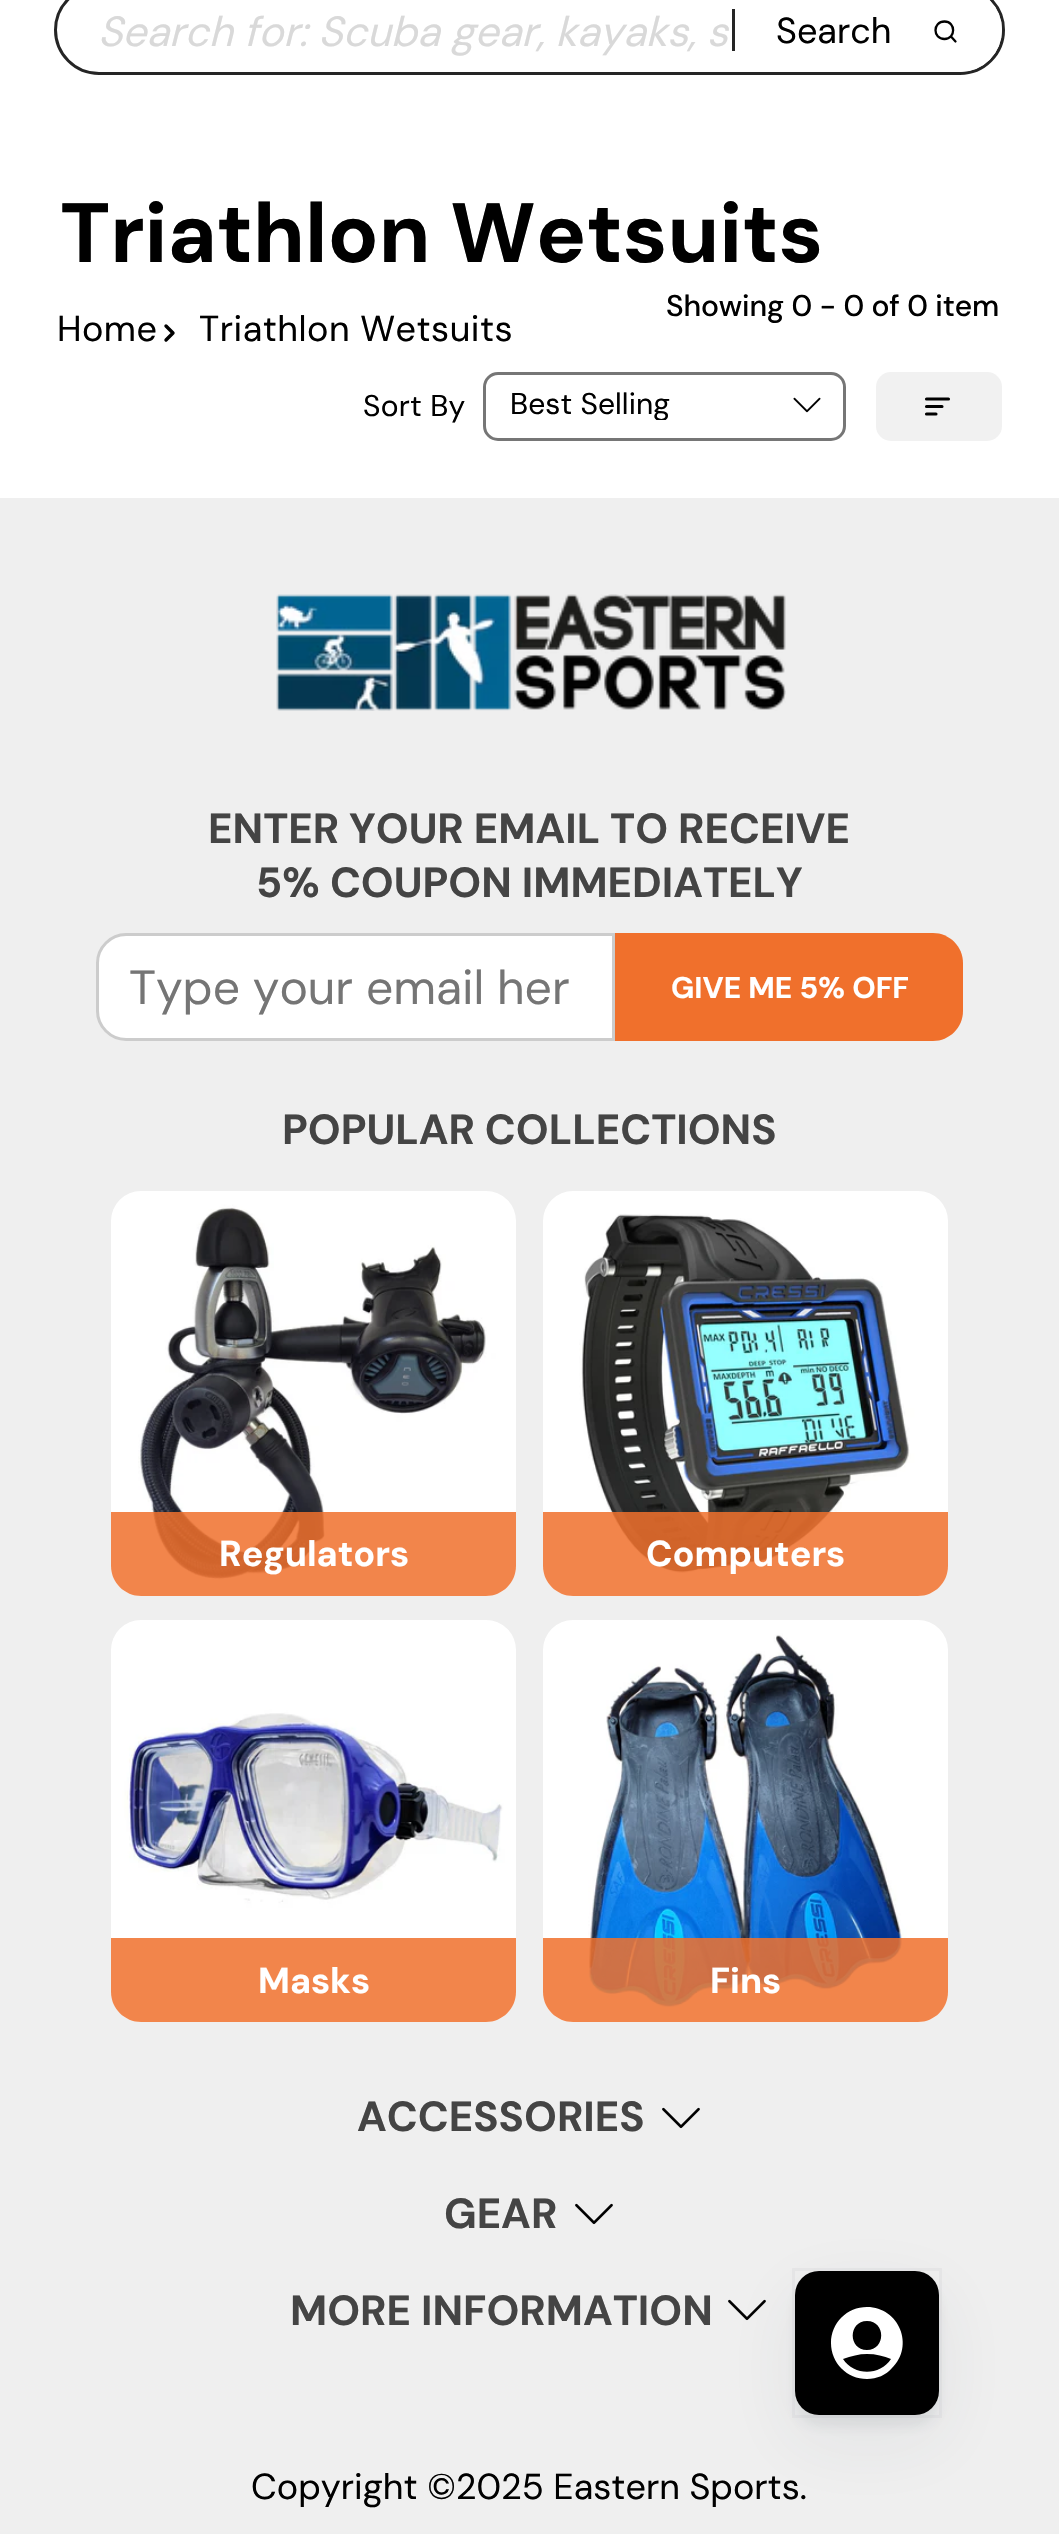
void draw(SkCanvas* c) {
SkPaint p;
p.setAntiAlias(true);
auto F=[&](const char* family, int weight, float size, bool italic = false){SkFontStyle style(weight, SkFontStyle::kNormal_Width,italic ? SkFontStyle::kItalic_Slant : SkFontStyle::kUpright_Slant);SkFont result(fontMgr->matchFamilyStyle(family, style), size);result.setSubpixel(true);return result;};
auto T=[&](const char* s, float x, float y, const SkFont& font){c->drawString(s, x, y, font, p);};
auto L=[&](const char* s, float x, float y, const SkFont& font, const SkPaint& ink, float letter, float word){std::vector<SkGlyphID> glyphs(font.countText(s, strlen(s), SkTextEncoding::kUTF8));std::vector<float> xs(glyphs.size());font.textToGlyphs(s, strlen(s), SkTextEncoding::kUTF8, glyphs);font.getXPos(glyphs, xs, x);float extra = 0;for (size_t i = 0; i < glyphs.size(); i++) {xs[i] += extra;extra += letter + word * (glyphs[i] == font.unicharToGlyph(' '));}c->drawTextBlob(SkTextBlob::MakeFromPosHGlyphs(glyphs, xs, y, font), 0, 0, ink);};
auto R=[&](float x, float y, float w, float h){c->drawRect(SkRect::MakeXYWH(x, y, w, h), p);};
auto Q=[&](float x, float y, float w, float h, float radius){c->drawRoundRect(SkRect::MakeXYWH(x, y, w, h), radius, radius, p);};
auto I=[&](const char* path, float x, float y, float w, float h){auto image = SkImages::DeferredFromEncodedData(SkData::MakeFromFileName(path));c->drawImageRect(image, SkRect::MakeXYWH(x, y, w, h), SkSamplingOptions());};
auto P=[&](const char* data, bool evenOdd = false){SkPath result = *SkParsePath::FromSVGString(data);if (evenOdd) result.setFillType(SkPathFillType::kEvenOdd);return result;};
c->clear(0xffffffff);
p.setStroke(true);
p.setStrokeWidth(3);
p.setColor(0xff252525);
c->drawRoundRect(SkRect::MakeXYWH(55.5,-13.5,948,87),43.5,43.5,p);
auto f1 = F("DM Sans",400,42,true);
p.setStroke(false);
p.setColor(0xffd9d9d9);
T("Search for: Scuba gear, kayaks, s",98,46,f1);
p.setColor(0xffffffff);
Q(732,-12,270,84,42);
p.setColor(0xff252525);
R(732,9,3,42);
auto f2 = F("DM Sans",400,36);
p.setColor(0xff000000);
T("Search",776,43,f2);
p.setStroke(true);
p.setStrokeWidth(2.3);
p.setStrokeCap(SkPaint::kRound_Cap);
p.setStrokeJoin(SkPaint::kRound_Join);
c->drawPath(P("M944.5 39c11.5 0 11.5-17.5 0-17.5c-12 0-12 17.5 0 17.5zm11 2.5l-4.5-5"),p);
auto f3 = F("DM Sans",700,84);
p.setStroke(false);
T("Triathlon Wetsuits",60,262,f3);
auto f4 = F("DM Sans",500,30);
L("Showing 0 - 0 of 0 item",666,316,f4,p,-.15,0);
L("Home",57,341,f2,p,.5,0);
p.setStroke(true);
p.setStrokeWidth(3.4);
c->drawPath(P("M166 326l7 7l-7 7"),p);
p.setStroke(false);
L("Triathlon Wetsuits",199,341,f2,p,.5,0);
auto f5 = F("DM Sans",400,30);
L("Sort By",363,416,f5,p,.25,0);
I("1.png",793,397,28,16);
p.setStroke(true);
p.setStrokeWidth(3);
p.setStrokeCap(SkPaint::kButt_Cap);
p.setStrokeJoin(SkPaint::kMiter_Join);
p.setColor(0xff767676);
c->drawRoundRect(SkRect::MakeXYWH(484.5,373.5,360,66),13.5,13.5,p);
c->save();
c->clipRect(SkRect::MakeXYWH(510,390,315,30));
p.setStroke(false);
p.setColor(0xff000000);
L("Best Selling",510,414,f5,p,.1,0);
c->restore();
p.setColor(0xfff1f1f1);
Q(876,372,126,69,15);
p.setStroke(true);
p.setStrokeWidth(3.1);
p.setStrokeCap(SkPaint::kRound_Cap);
p.setColor(0xff000000);
c->drawPath(P("M926.5 399h22m-22 7.5h15.5m-15.5 7.5h9.5"),p);
p.setStroke(false);
p.setColor(0xffefefef);
R(0,498,1059,2036);
I("2.png",276,594,510,117);
auto f6 = F("DM Sans",700,42);
p.setColor(0xff444444);
T("ENTER YOUR EMAIL TO RECEIVE",208,843,f6);
T("5% COUPON IMMEDIATELY",256,897,f6);
p.setColor(0xffffffff);
c->drawPath(P("M126 934.5h487.5v105h-487.5c-15.5 0-28.5-13-28.5-28.5v-48c0-15.5 13-28.5 28.5-28.5z"),p);
p.setStroke(true);
p.setStrokeWidth(3);
p.setStrokeCap(SkPaint::kButt_Cap);
p.setColor(0xffcccccc);
c->drawPath(P("M126 934.5h487.5v105h-487.5c-15.5 0-28.5-13-28.5-28.5v-48c0-15.5 13-28.5 28.5-28.5z"),p);
auto f7 = F("DM Sans",400,48);
p.setStroke(false);
p.setColor(0xff757575);
T("Type your email her",129,1004,f7);
p.setColor(0xfff0702c);
c->drawPath(P("M615 933h318c16.5 0 30 13.5 30 30v48c0 16.5-13.5 30-30 30h-318z"),p);
auto f8 = F("DM Sans",700,30);
p.setColor(0xffffffff);
T("GIVE ME 5% OFF",671,998,f8);
p.setColor(0xff444444);
T("POPULAR COLLECTIONS",282,1144,f6);
I("3.png",111,1191,405,405);
p.setColor(0xd9f0702c);
c->drawPath(P("M111 1512h405v54c0 16.5-13.5 30-30 30h-345c-16.5 0-30-13.5-30-30z"),p);
auto f9 = F("DM Sans",700,36);
p.setColor(0xffffffff);
T("Regulators",219,1566,f9);
I("4.png",543,1191,405,405);
p.setColor(0xd9f0702c);
c->drawPath(P("M543 1512h405v54c0 16.5-13.5 30-30 30h-345c-16.5 0-30-13.5-30-30z"),p);
p.setColor(0xffffffff);
T("Computers",646,1566,f9);
I("5.png",111,1620,405,402);
p.setColor(0xd9f0702c);
c->drawPath(P("M111 1938h405v54c0 16.5-13.5 30-30 30h-345c-16.5 0-30-13.5-30-30z"),p);
p.setColor(0xffffffff);
T("Masks",258,1993,f9);
I("6.png",543,1620,405,402);
p.setColor(0xd9f0702c);
c->drawPath(P("M543 1938h405v54c0 16.5-13.5 30-30 30h-345c-16.5 0-30-13.5-30-30z"),p);
p.setColor(0xffffffff);
T("Fins",710,1993,f9);
p.setColor(0xff444444);
T("ACCESSORIES",357,2131,f6);
I("7.png",662,2107,38,22);
T("GEAR",444,2228,f6);
I("7.png",575,2203,38,22);
T("MORE INFORMATION",290,2325,f6);
I("7.png",728,2299,38,22);
p.setColor(0xff000000);
T("Copyright ©2025 Eastern Sports.",251,2499,f2);
p.setColor(0x14373f47);
p.setMaskFilter(SkMaskFilter::MakeBlur(kNormal_SkBlurStyle, 36));
c->drawRoundRect(SkRect::MakeXYWH(795,2295,144,144),24,24,p);
p.setMaskFilter(nullptr);
p.setMaskFilter(SkMaskFilter::MakeBlur(kNormal_SkBlurStyle, 6));
c->drawRoundRect(SkRect::MakeXYWH(795,2283,144,144),24,24,p);
p.setMaskFilter(nullptr);
p.setStroke(true);
p.setColor(0x0a373f47);
c->drawRect(SkRect::MakeXYWH(793.5,2269.5,147,147),p);
p.setStroke(false);
p.setColor(0xff000000);
Q(795,2271,144,144,24);
p.setColor(0xffffffff);
c->drawPath(P("M867 2307c-20 0-36 16-36 36c0 20 16 36 36 36c10 0 19-4 25-11c23-22 7-61-25-61zm0 47c9 0 17 2 24 5c-11 17-37 17-48 0c8-3 16-5 24-5zm0-4c19 0 19-29 0-29c-19 0-19 29 0 29z",true),p);
}
